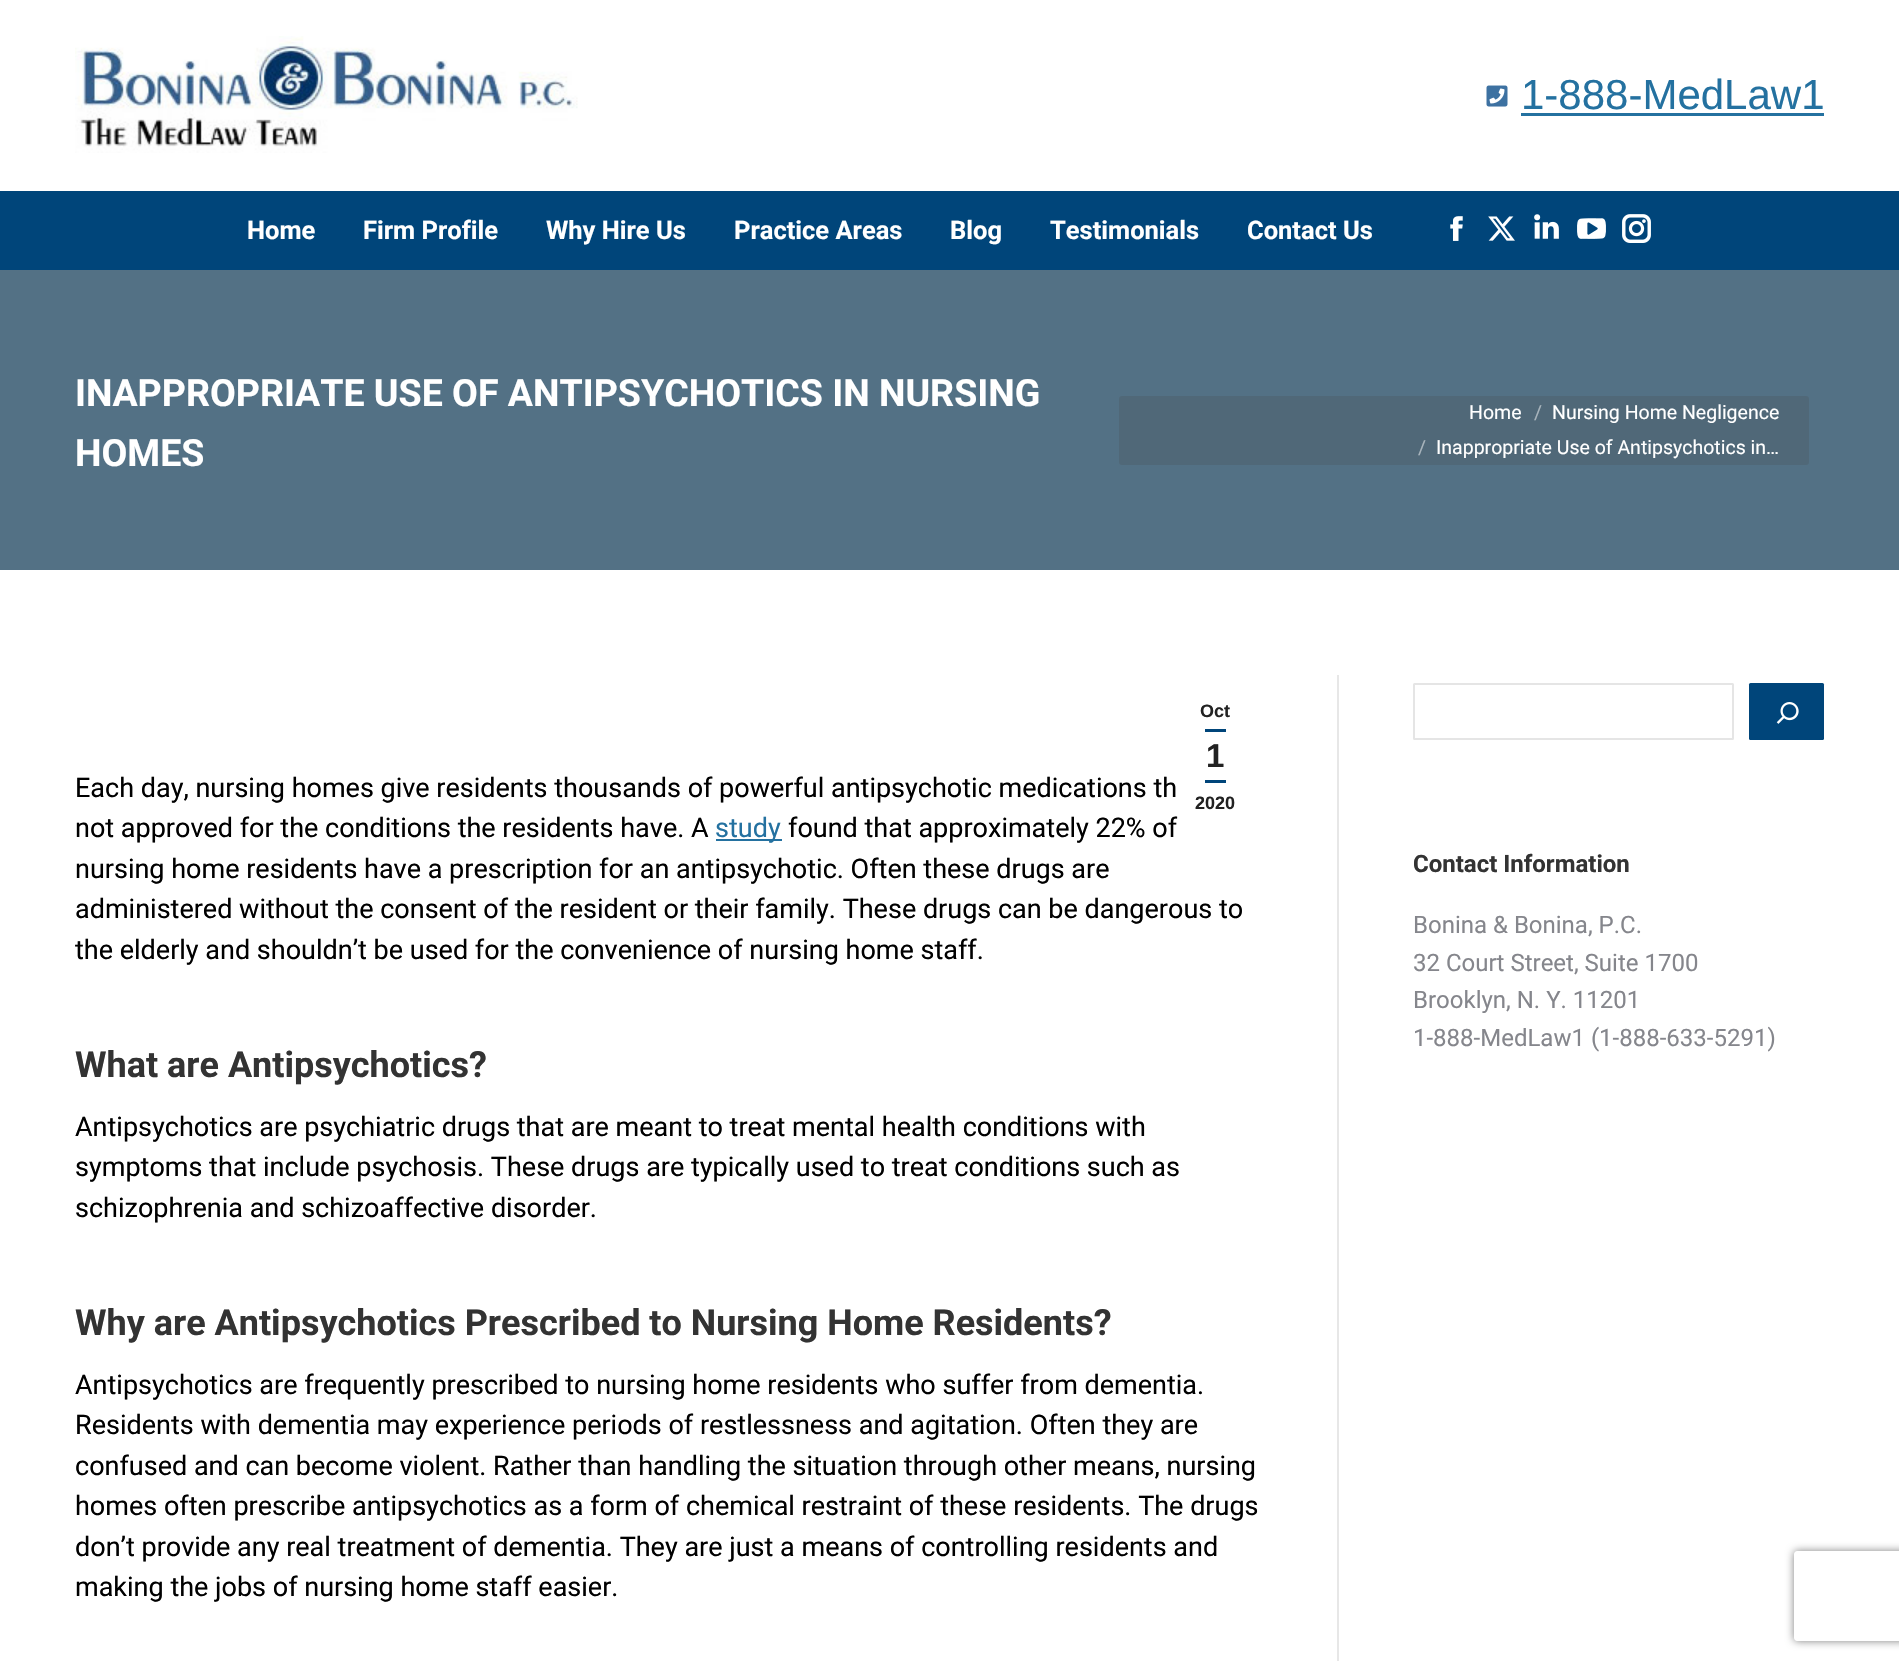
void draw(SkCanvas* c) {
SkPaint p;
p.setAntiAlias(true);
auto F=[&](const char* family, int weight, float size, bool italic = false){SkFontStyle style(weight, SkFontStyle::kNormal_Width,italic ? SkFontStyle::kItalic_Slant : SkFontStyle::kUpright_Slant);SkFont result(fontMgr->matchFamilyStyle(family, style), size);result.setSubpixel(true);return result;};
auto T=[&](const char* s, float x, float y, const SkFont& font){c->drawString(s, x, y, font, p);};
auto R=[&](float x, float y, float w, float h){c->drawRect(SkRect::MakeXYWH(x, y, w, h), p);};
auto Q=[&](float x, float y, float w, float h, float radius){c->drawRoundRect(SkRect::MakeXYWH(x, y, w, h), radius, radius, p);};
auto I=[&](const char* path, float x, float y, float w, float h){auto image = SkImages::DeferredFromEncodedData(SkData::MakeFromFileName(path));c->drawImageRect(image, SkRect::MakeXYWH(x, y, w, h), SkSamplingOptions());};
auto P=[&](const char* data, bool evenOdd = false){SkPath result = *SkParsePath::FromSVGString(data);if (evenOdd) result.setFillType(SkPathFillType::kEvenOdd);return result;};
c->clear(0xffffffff);
I("1.png",75,36,503,117);
I("2.png",1486,85,22,22);
auto f1 = F("Liberation Sans",400,42);
p.setColor(0xff2471a0);
T("1-888-MedLaw1",1521,109,f1);
R(1521,113,303,3);
p.setColor(0xff00457a);
R(0,191,1899,79);
auto f2 = F("Roboto",700,25.5);
p.setColor(0xffffffff);
T("Home",247,239,f2);
T("Firm Profile",363,239,f2);
T("Why Hire Us",546,239,f2);
T("Practice Areas",734,239,f2);
T("Blog",950,239,f2);
T("Testimonials",1050,239,f2);
T("Contact Us",1247,239,f2);
I("3.png",1450,216,13,25);
I("4.png",1488,216,27,25);
I("5.png",1534,214,25,25);
I("6.png",1577,218,29,21);
I("7.png",1622,214,29,29);
p.setColor(0xff537185);
R(0,270,1899,300);
auto f3 = F("Roboto",700,37.5);
p.setColor(0xffffffff);
T("INAPPROPRIATE USE OF ANTIPSYCHOTICS IN NURSING",75,406,f3);
T("HOMES",75,466,f3);
p.setColor(0xff506878);
Q(1119,396,690,69,3);
auto f4 = F("Roboto",400,19.5);
p.setColor(0xffffffff);
T("Home",1469,419,f4);
p.setColor(0xffa8b4bc);
T("/",1534,419,f4);
p.setColor(0xffffffff);
T("Nursing Home Negligence",1552,419,f4);
p.setColor(0xffa8b4bc);
T("/",1418,454,f4);
p.setColor(0xffffffff);
T("Inappropriate Use of Antipsychotics in…",1436,454,f4);
auto f5 = F("Liberation Sans",700,18);
p.setColor(0xff222222);
T("Oct",1200,717,f5);
p.setColor(0xff00457a);
R(1205,729,21,3);
auto f6 = F("Liberation Sans",700,33);
p.setColor(0xff222222);
T("1",1206,767,f6);
p.setColor(0xff00457a);
R(1205,780,21,3);
p.setColor(0xff222222);
T("2020",1195,809,f5);
auto f7 = F("Roboto",400,27);
p.setColor(0xff000000);
T("Each day, nursing homes give residents thousands of powerful antipsychotic medications th",75,797,f7);
T("not approved for the conditions the residents have. A",75,837,f7);
p.setColor(0xff2471a0);
R(716,839,66,2);
T("study",715,837,f7);
p.setColor(0xff000000);
T("found that approximately 22% of",788,837,f7);
T("nursing home residents have a prescription for an antipsychotic. Often these drugs are",75,878,f7);
T("administered without the consent of the resident or their family. These drugs can be dangerous to",75,918,f7);
T("the elderly and shouldn’t be used for the convenience of nursing home staff.",75,959,f7);
auto f8 = F("Roboto",700,36);
p.setColor(0xff333333);
T("What are Antipsychotics?",75,1077,f8);
p.setColor(0xff000000);
T("Antipsychotics are psychiatric drugs that are meant to treat mental health conditions with",75,1136,f7);
T("symptoms that include psychosis. These drugs are typically used to treat conditions such as",75,1176,f7);
T("schizophrenia and schizoaffective disorder.",75,1217,f7);
p.setColor(0xff333333);
T("Why are Antipsychotics Prescribed to Nursing Home Residents?",75,1335,f8);
p.setColor(0xff000000);
T("Antipsychotics are frequently prescribed to nursing home residents who suffer from dementia.",75,1394,f7);
T("Residents with dementia may experience periods of restlessness and agitation. Often they are",75,1434,f7);
T("confused and can become violent. Rather than handling the situation through other means, nursing",75,1475,f7);
T("homes often prescribe antipsychotics as a form of chemical restraint of these residents. The drugs",75,1515,f7);
T("don’t provide any real treatment of dementia. They are just a means of controlling residents and",75,1556,f7);
T("making the jobs of nursing home staff easier.",75,1596,f7);
p.setColor(0xffe7e7e7);
R(1337,675,2,986);
p.setStroke(true);
p.setStrokeWidth(2);
p.setColor(0xffe5e5e5);
c->drawRoundRect(SkRect::MakeXYWH(1414,684,319,55),.5,.5,p);
p.setStroke(false);
p.setColor(0xff00457a);
Q(1749,683,75,57,1.5);
I("8.png",1776,702,23,22);
auto f9 = F("Roboto",700,24);
p.setColor(0xff333333);
T("Contact Information",1413,872,f9);
auto f10 = F("Roboto",400,24);
p.setColor(0xff85868c);
T("Bonina & Bonina, P.C.",1413,933,f10);
T("32 Court Street, Suite 1700",1413,971,f10);
T("Brooklyn, N. Y. 11201",1413,1008,f10);
T("1-888-MedLaw1 (1-888-633-5291)",1413,1046,f10);
c->save();
c->clipPath(P("M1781 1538h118v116h-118zm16 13h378c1.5 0 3 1.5 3 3v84c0 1.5-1.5 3-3 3h-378c-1.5 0-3-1.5-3-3v-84c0-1.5 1.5-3 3-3z",true),true);
p.setColor(0xff808080);
p.setMaskFilter(SkMaskFilter::MakeBlur(kNormal_SkBlurStyle, 4));
c->drawRoundRect(SkRect::MakeXYWH(1794,1551,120,90),3,3,p);
p.setMaskFilter(nullptr);
c->restore();
}
